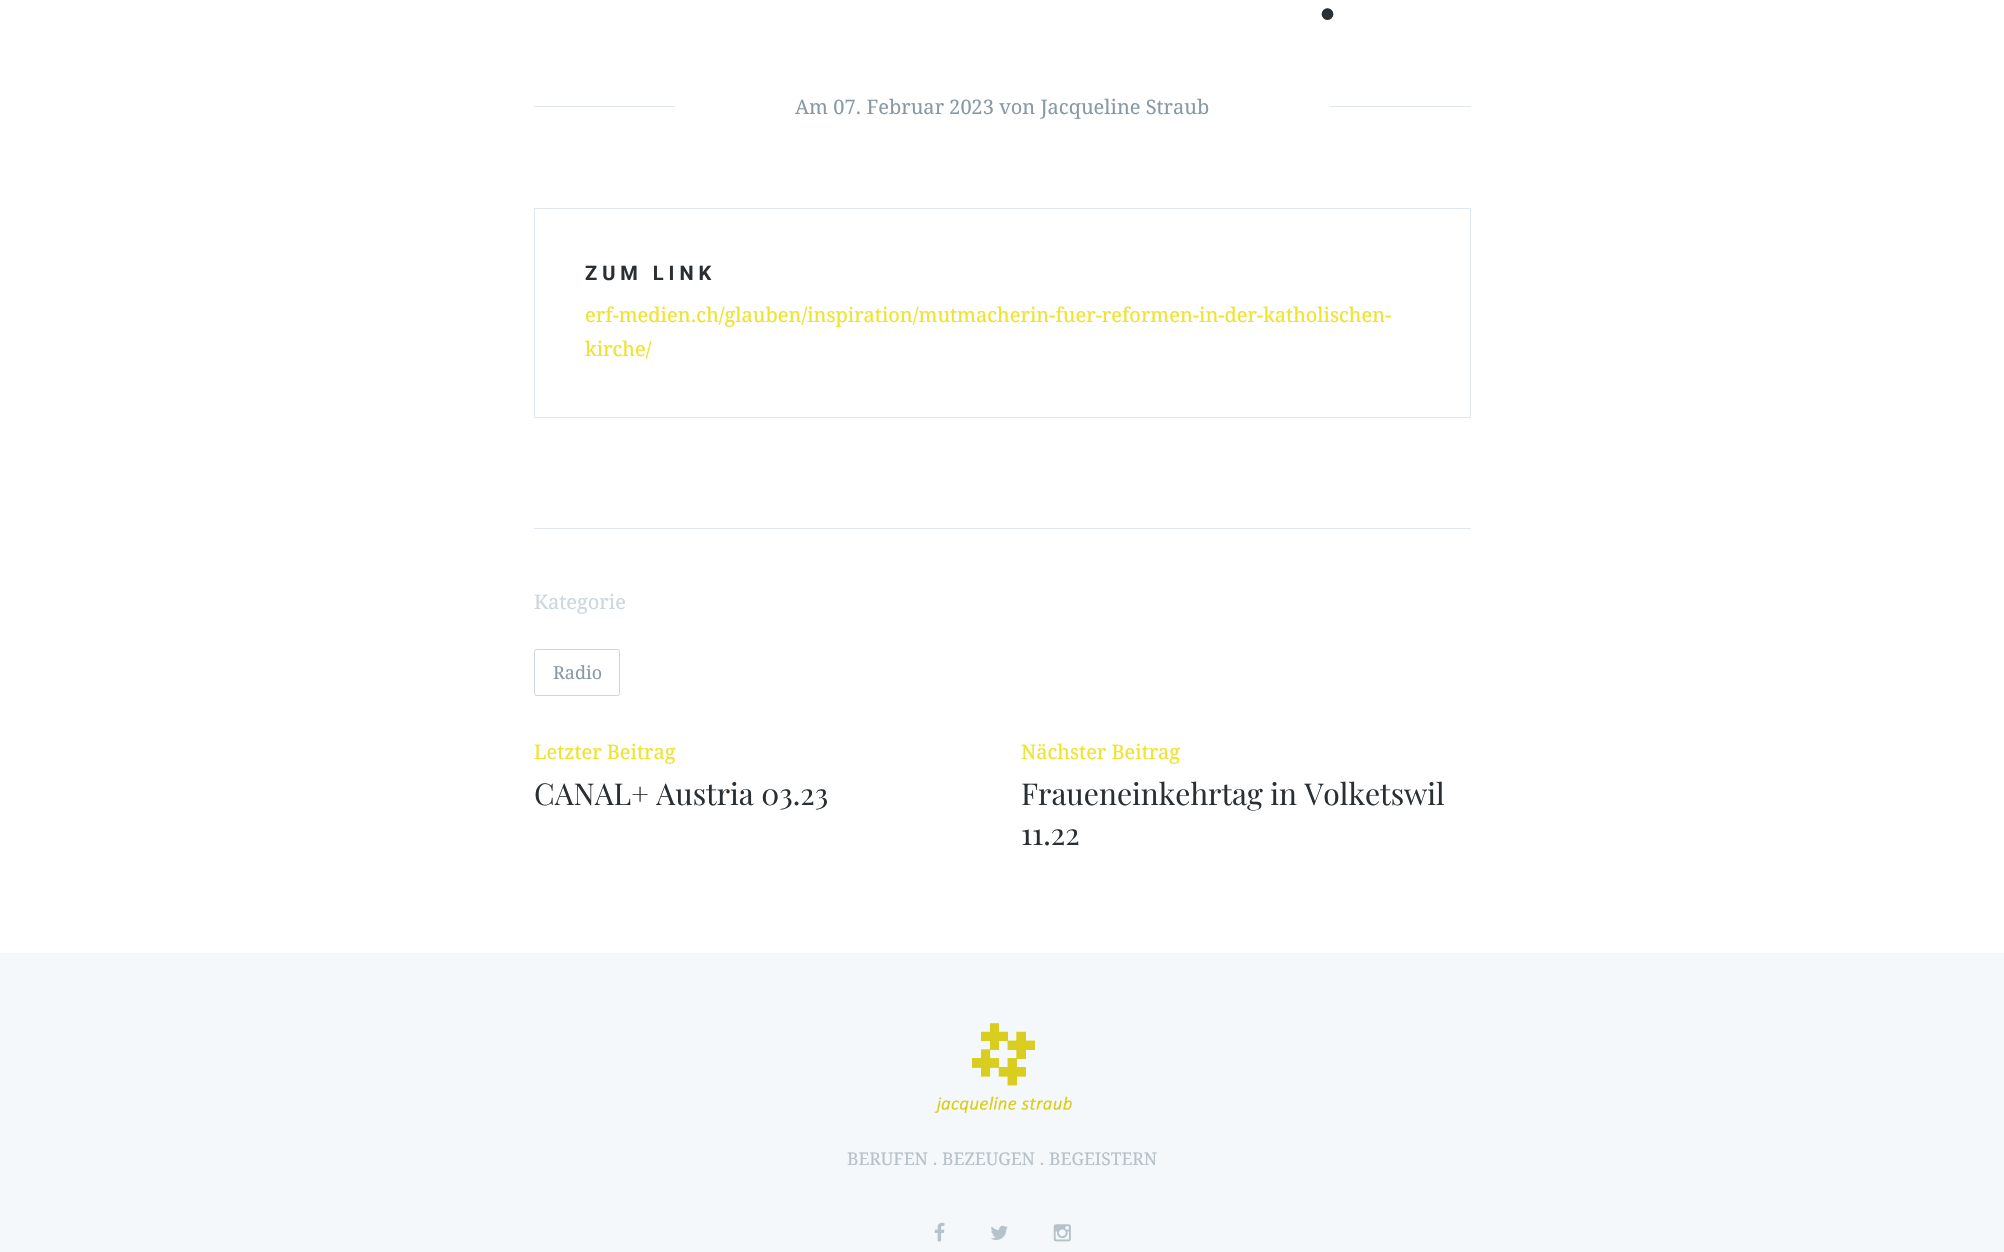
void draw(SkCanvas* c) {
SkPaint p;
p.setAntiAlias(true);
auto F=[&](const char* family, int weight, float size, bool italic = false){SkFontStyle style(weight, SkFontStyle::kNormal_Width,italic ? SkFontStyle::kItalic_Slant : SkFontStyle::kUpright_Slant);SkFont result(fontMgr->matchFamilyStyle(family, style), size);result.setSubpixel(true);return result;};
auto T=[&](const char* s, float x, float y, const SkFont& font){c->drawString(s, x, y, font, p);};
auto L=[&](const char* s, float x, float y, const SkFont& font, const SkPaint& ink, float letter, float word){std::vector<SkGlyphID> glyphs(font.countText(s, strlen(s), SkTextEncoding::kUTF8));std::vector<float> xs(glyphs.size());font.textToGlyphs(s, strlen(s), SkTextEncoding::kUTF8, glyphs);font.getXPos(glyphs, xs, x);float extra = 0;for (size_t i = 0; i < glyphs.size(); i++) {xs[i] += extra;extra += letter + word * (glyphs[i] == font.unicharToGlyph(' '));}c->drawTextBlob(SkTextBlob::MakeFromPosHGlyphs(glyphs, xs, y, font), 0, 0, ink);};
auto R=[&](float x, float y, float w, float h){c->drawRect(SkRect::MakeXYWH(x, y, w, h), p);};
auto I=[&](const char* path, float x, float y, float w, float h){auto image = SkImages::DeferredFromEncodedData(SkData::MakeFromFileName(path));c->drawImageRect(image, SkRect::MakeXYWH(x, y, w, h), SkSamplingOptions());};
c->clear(0xfff5f8fa);
p.setColor(0xffffffff);
R(0,0,2004,953);
auto f1 = F("Playfair Display",700,75);
p.setColor(0xff292f33);
L(".",1317,19,f1,p,-1,0);
p.setColor(0xffe1e8ed);
R(534,106,937,1);
p.setColor(0xffffffff);
R(675,106,655,1);
auto f2 = F("Droid Serif",400,20,true);
p.setColor(0xff8899a6);
T("Am 07. Februar 2023 von Jacqueline Straub",795,114,f2);
p.setStroke(true);
p.setStrokeWidth(1);
p.setColor(0xffe1e8ed);
c->drawRect(SkRect::MakeXYWH(534.5,208.5,936,209),p);
auto f3 = F("Roboto",700,20);
p.setStroke(false);
p.setColor(0xff292f33);
L("ZUM LINK",585,280,f3,p,5,0);
p.setColor(0xffefe32e);
T("erf-medien.ch/glauben/inspiration/mutmacherin-fuer-reformen-in-der-katholischen-",585,322,f2);
T("kirche/",585,356,f2);
p.setColor(0xffe1e8ed);
R(534,528,937,1);
p.setColor(0xffccd6dd);
T("Kategorie",534,609,f2);
p.setStroke(true);
c->drawRoundRect(SkRect::MakeXYWH(534.5,649.5,85,46),2,2,p);
auto f4 = F("Droid Serif",400,18,true);
p.setStroke(false);
p.setColor(0xff8899a6);
T("Radio",553,679,f4);
p.setColor(0xffefe32e);
T("Letzter Beitrag",534,759,f2);
auto f5 = F("Playfair Display",400,30);
p.setColor(0xff292f33);
T("CANAL+ Austria 03.23",534,805,f5);
p.setColor(0xffefe32e);
T("Nächster Beitrag",1021,759,f2);
p.setColor(0xff292f33);
T("Fraueneinkehrtag in Volketswil",1021,805,f5);
T("11.22",1021,845,f5);
I("1.png",934,1023,138,90);
auto f6 = F("Droid Serif",400,17.5,true);
p.setColor(0xffb5c2ca);
T("BERUFEN . BEZEUGEN . BEGEISTERN",847,1165,f6);
I("2.png",934,1222,11,20);
I("3.png",990,1225,18,15);
I("4.png",1053,1224,18,18);
}
